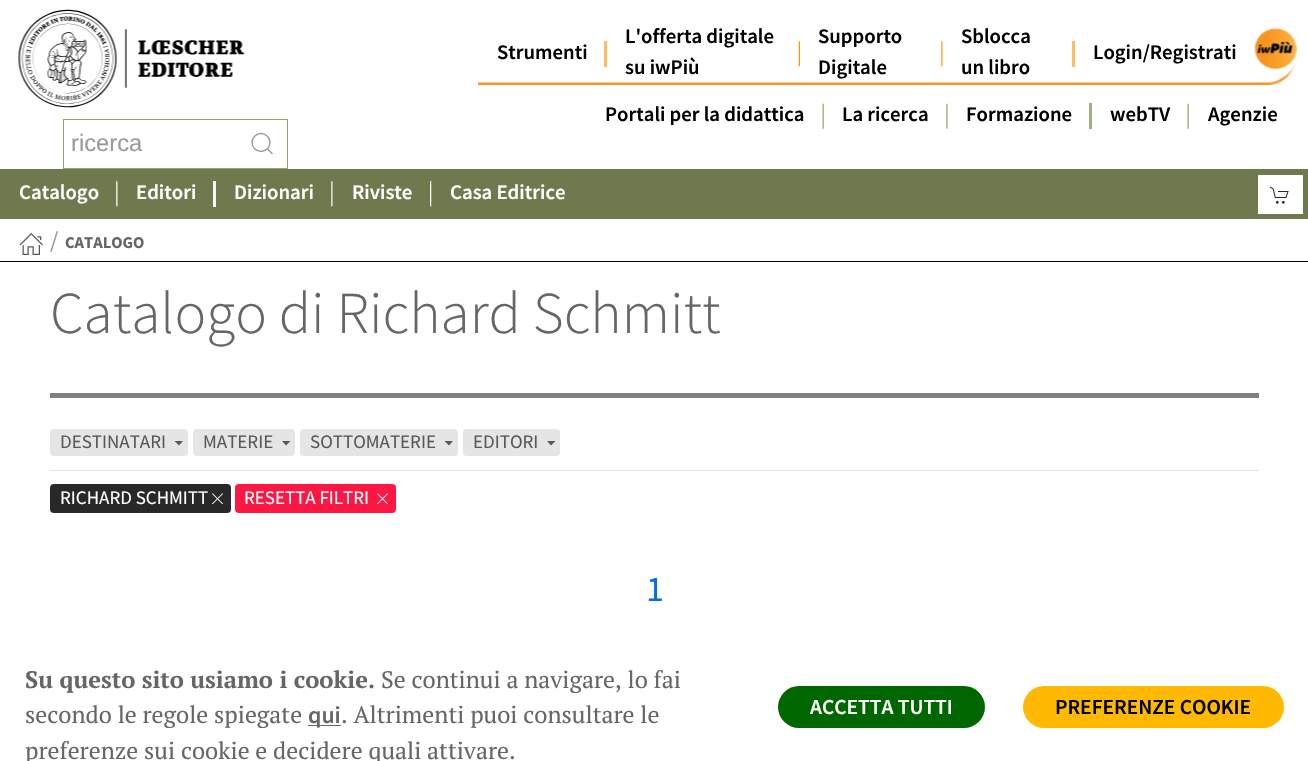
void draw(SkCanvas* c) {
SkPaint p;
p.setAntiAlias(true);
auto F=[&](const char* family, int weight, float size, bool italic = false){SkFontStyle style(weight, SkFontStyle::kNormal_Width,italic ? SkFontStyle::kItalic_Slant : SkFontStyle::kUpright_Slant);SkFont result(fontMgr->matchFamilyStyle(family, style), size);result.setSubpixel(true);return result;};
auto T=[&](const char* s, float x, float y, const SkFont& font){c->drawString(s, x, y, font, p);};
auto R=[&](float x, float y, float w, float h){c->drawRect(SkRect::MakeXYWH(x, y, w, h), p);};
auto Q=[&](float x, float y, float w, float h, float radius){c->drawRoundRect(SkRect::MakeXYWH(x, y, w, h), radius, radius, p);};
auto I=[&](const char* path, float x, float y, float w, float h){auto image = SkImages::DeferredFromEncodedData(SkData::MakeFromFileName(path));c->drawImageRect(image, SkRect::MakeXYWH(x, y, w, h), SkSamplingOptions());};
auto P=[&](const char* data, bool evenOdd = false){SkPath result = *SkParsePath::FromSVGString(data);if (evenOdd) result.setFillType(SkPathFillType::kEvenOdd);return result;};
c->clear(0xffffffff);
I("1.png",478,24,817,61);
p.setColor(0xffffbc5e);
R(604,41,3,26);
auto f1 = F("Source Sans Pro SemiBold",600,20.75);
p.setColor(0xff000000);
T("Strumenti",497,59,f1);
I("2.png",798,41,2,26);
T("L'offerta digitale",625,43,f1);
T("su iwPiù",625,74,f1);
I("3.png",941,41,2,26);
T("Supporto",818,43,f1);
T("Digitale",818,74,f1);
p.setColor(0xffffbd61);
R(1072,41,3,26);
p.setColor(0xff000000);
T("Sblocca",961,43,f1);
T("un libro",961,74,f1);
T("Login/Registrati",1093,59,f1);
I("4.png",1254,28,43,42);
I("5.png",822,103,2,26);
T("Portali per la didattica",605,121,f1);
I("6.png",946,103,2,26);
T("La ricerca",842,121,f1);
p.setColor(0xff9fb181);
R(1089,103,3,26);
p.setColor(0xff000000);
T("Formazione",966,121,f1);
I("7.png",1187,103,2,26);
T("webTV",1110,121,f1);
T("Agenzie",1208,121,f1);
I("8.png",18,9,227,99);
p.setStroke(true);
p.setStrokeWidth(1);
p.setColor(0xff92a56e);
c->drawRect(SkRect::MakeXYWH(63.5,119.5,224,49),p);
auto f2 = F("Liberation Sans",400,23.75);
p.setStroke(false);
p.setColor(0xff999999);
T("ricerca",71,151,f2);
p.setStroke(true);
p.setStrokeWidth(1.4);
c->drawCircle(261,142.5,9,p);
c->drawPath(P("M267.5 149l5 5z"),p);
p.setStroke(false);
p.setColor(0xff6e7a4d);
R(0,169,1308,50);
I("9.png",116,180,2,27);
p.setColor(0xffffffff);
T("Catalogo",19,199,f1);
p.setColor(0xfff6f7f4);
R(213,181,3,26);
p.setColor(0xffffffff);
T("Editori",136,199,f1);
I("10.png",331,181,2,26);
T("Dizionari",234,199,f1);
I("11.png",430,180,2,27);
T("Riviste",352,199,f1);
T("Casa Editrice",450,199,f1);
R(1258,175,45,39);
I("12.png",1270,186,19,18);
p.setColor(0xff000000);
R(0,261,1308,1);
I("13.png",19,233,24,22);
auto f3 = F("Source Sans Pro",400,23.75);
p.setColor(0xff999999);
T("/",50,248,f3);
auto f4 = F("Source Sans Pro",700,16.5);
p.setColor(0xff666666);
T("CATALOGO",65,248,f4);
auto f5 = F("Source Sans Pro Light",300,59.4);
T("Catalogo di Richard Schmitt",50,333,f5);
p.setColor(0xff808080);
R(50,393,1209,5);
p.setColor(0xffe5e5e5);
R(50,470,1209,1);
Q(50,429,138,27,4);
auto f6 = F("Source Sans Pro",400,19);
p.setColor(0xff585858);
T("DESTINATARI",60,448,f6);
c->drawPath(P("M174.5 441h8.5l-4 4.5z"),p);
p.setColor(0xffe5e5e5);
Q(193,429,102,27,4);
p.setColor(0xff585858);
T("MATERIE",203,448,f6);
c->drawPath(P("M282 441h8.5l-4.5 4.5z"),p);
p.setColor(0xffe5e5e5);
Q(300,429,158,27,4);
p.setColor(0xff585858);
T("SOTTOMATERIE",310,448,f6);
c->drawPath(P("M444.5 441h8.5l-4 4.5z"),p);
p.setColor(0xffe5e5e5);
Q(463,429,97,27,4);
p.setColor(0xff585858);
T("EDITORI",473,448,f6);
c->drawPath(P("M547 441h8.5l-4.5 4.5z"),p);
p.setColor(0xff282828);
Q(50,484,181,29,4);
p.setColor(0xffffffff);
T("RICHARD SCHMITT",60,504,f6);
I("14.png",212,493,11,12);
p.setColor(0xffff1744);
Q(235,484,161,29,4);
p.setColor(0xffffffff);
T("RESETTA FILTRI",244,504,f6);
I("15.png",377,493,11,12);
auto f7 = F("Source Sans Pro",400,36);
p.setColor(0xff0172e2);
T("1",646,601,f7);
auto f8 = F("PT Serif",700,23.75);
p.setColor(0xff666666);
T("Su questo sito usiamo i cookie.",25,688,f8);
auto f9 = F("PT Serif",400,23.75);
T("Se continui a navigare, lo fai",381,688,f9);
T("secondo le regole spiegate",25,723,f9);
R(308,725,33,1);
auto f10 = F("Source Sans Pro SemiBold",600,23.75);
T("qui",308,723,f10);
T(". Altrimenti puoi consultare le",341,723,f9);
T("preferenze sui cookie e decidere quali attivare.",25,759,f9);
p.setColor(0xff006700);
Q(778,686,207,42,21);
auto f11 = F("Source Sans Pro SemiBold",600,21.4);
p.setColor(0xffffffff);
T("ACCETTA TUTTI",810,714,f11);
p.setColor(0xffffb900);
Q(1023,686,261,42,21);
p.setColor(0xff000000);
T("PREFERENZE COOKIE",1055,714,f11);
}
